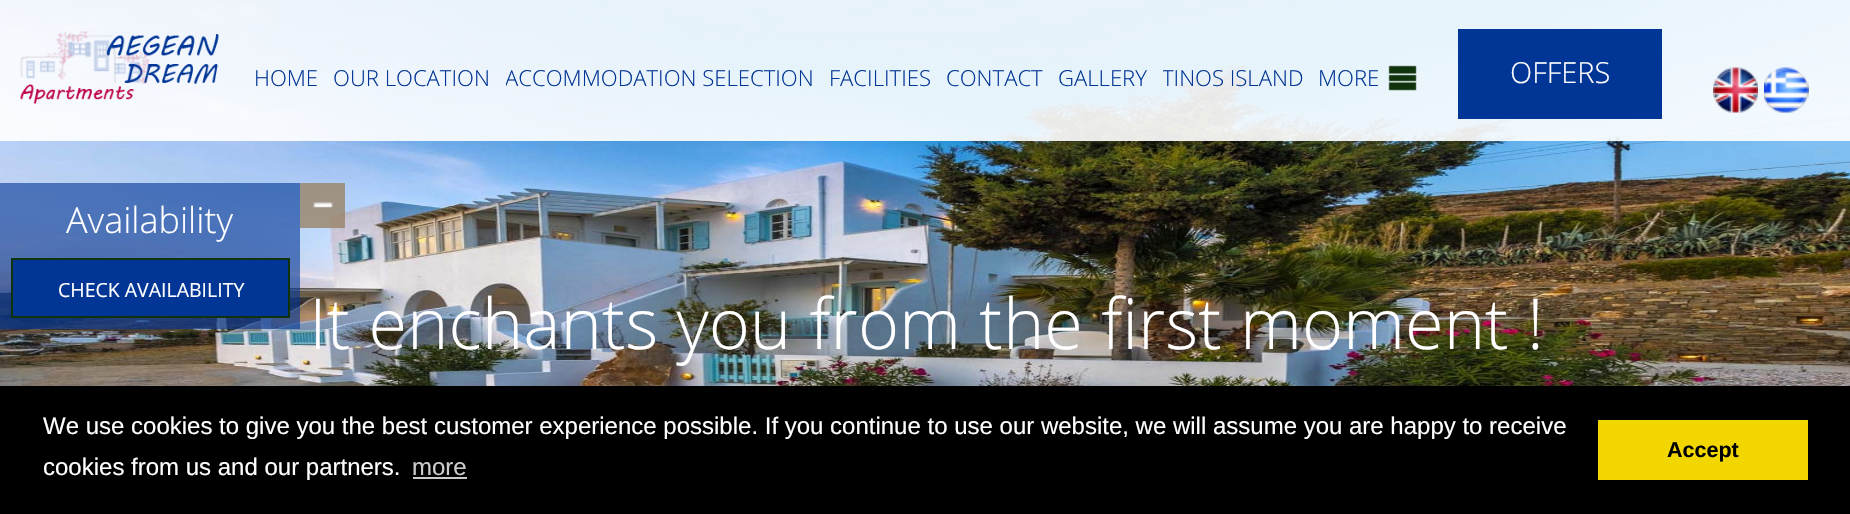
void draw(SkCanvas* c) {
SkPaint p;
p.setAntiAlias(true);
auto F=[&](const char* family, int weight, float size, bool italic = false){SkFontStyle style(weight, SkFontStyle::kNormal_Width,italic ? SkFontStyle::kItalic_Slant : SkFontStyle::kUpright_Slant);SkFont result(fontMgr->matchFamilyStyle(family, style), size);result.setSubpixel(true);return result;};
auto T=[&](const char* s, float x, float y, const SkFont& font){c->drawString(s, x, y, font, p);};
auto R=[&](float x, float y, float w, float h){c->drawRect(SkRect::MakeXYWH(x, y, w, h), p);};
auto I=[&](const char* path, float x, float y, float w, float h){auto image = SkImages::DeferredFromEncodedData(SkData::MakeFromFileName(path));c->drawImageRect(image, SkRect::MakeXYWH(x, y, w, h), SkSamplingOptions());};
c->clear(0xffffffff);
I("6.png",0,0,1850,386);
p.setColor(0xe6ffffff);
R(0,0,1850,141);
I("1.png",20,31,199,73);
auto f1 = F("Open Sans",300,22.1);
p.setColor(0xff023696);
T("HOME",254,86,f1);
T("OUR LOCATION",333,86,f1);
c->save();
c->clipRect(SkRect::MakeXYWH(506,0,309,156));
T("ACCOMMODATION SELECTION",505,86,f1);
c->restore();
T("FACILITIES",829,86,f1);
T("CONTACT",946,86,f1);
T("GALLERY",1058,86,f1);
c->save();
c->clipRect(SkRect::MakeXYWH(1163,0,141,156));
T("TINOS ISLAND",1162,86,f1);
c->restore();
I("2.png",1388,65,29,26);
T("MORE",1318,86,f1);
R(1458,29,204,90);
auto f2 = F("Open Sans",300,29);
p.setColor(0xffffffff);
T("OFFERS",1510,83,f2);
I("3.png",1713,67,45,46);
I("4.png",1764,67,45,46);
p.setColor(0x9c023696);
R(0,183,300,146);
auto f3 = F("Open Sans",300,36);
p.setColor(0xffffffff);
T("Availability",66,233,f3);
p.setColor(0xff023696);
c->drawRect(SkRect::MakeXYWH(12,259,277,58),p);
p.setStroke(true);
p.setStrokeWidth(2);
p.setColor(0xff10330b);
c->drawRect(SkRect::MakeXYWH(12,259,277,58),p);
auto f4 = F("Open Sans",400,19.5);
p.setStroke(false);
p.setColor(0xffffffff);
T("CHECK AVAILABILITY",58,297,f4);
I("5.png",300,183,45,45);
auto f5 = F("Open Sans",300,70.25);
T("It enchants you from the first moment !",309,349,f5);
p.setColor(0xff000000);
R(0,386,1850,128);
auto f6 = F("Liberation Sans",400,24);
p.setColor(0xffffffff);
T("We use cookies to give you the best customer experience possible. If you continue to use our website, we will assume you are happy to receive",43,434,f6);
T("cookies from us and our partners.",43,475,f6);
p.setColor(0xffcccccc);
T("more",412,475,f6);
R(413,477,54,2);
p.setColor(0xfff1d600);
R(1598,420,210,60);
auto f7 = F("Liberation Sans",700,21.5);
p.setColor(0xff000000);
T("Accept",1667,457,f7);
}
